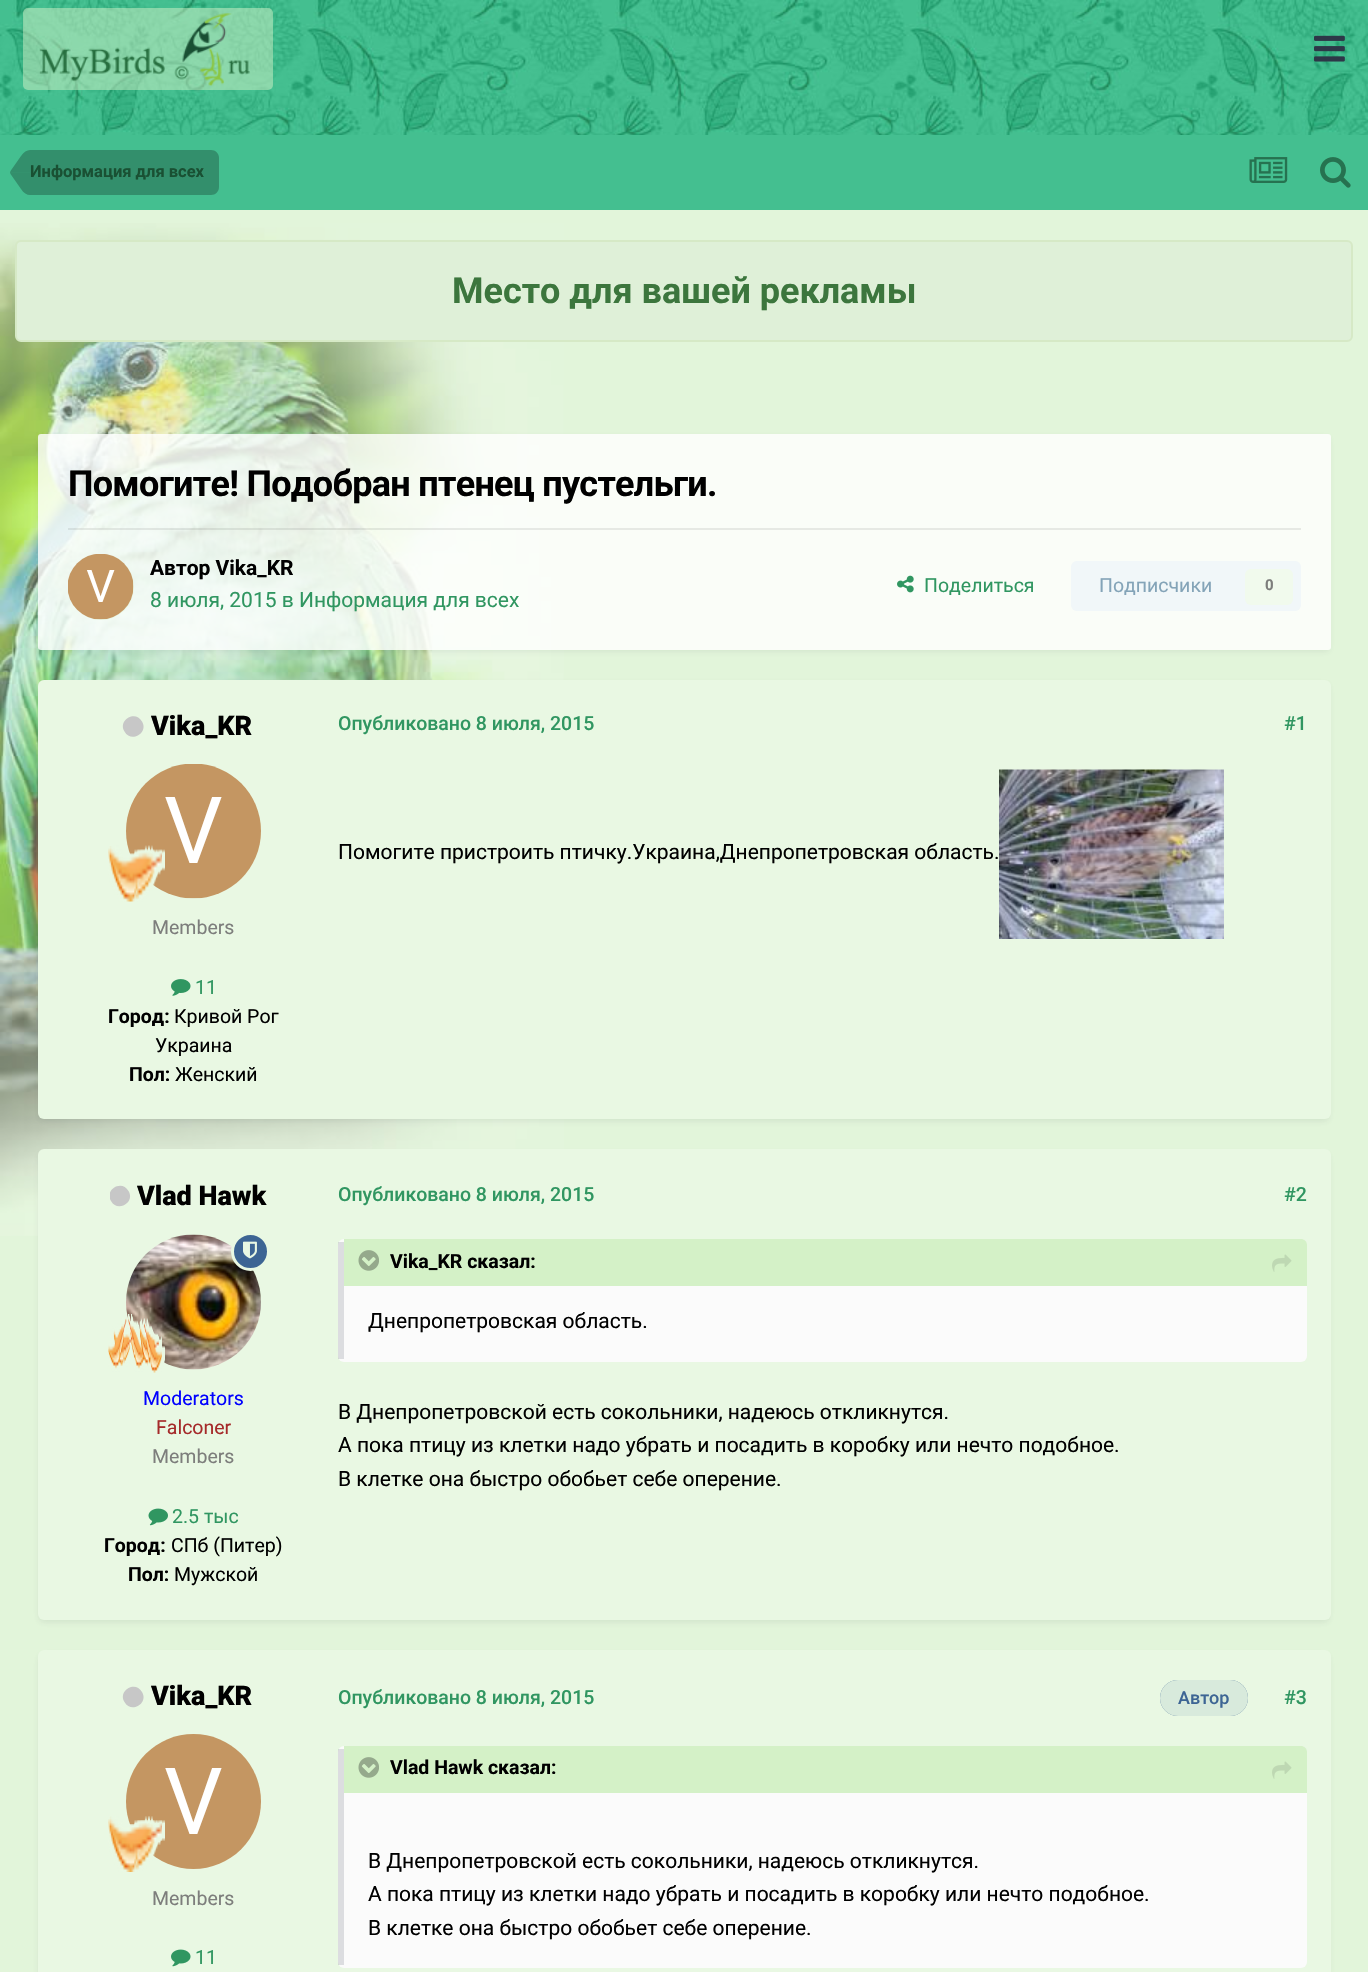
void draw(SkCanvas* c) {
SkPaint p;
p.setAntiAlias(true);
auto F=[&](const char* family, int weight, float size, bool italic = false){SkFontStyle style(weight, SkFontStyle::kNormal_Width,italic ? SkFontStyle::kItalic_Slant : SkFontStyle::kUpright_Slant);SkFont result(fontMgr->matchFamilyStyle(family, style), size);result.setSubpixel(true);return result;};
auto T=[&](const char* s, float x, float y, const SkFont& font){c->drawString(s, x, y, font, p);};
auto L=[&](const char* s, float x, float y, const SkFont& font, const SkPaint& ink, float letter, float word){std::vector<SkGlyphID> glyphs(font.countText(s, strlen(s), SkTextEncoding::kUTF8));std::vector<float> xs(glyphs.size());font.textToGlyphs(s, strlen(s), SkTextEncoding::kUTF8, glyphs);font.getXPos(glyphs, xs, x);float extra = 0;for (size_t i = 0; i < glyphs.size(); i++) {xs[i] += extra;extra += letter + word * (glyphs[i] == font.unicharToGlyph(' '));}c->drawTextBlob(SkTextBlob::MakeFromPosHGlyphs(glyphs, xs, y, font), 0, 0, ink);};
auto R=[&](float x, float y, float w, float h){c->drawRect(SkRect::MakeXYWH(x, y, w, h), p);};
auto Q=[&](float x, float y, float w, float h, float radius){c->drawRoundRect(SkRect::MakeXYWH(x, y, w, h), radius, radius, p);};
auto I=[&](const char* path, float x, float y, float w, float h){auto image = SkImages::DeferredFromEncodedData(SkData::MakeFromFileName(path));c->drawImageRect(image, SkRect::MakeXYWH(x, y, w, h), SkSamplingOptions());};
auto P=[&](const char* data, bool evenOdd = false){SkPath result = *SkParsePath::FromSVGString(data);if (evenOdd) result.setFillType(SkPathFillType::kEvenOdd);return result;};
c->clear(0xffe2f5da);
I("1.png",0,223,564,1013);
I("2.png",0,0,1368,135);
p.setColor(0x80d4f1c7);
Q(23,8,250,82,5);
I("3.png",39,13,211,73);
I("4.png",1314,35,31,27);
p.setColor(0xff44bf90);
R(0,135,1368,75);
p.setColor(0xff338f6c);
c->drawPath(P("M30 150h181c4.5 0 8 3.5 8 8v29c0 4.5-3.5 8-8 8h-181z"),p);
c->drawPath(P("M10.5 174l-.5-1.5h20v22.5c-3 0-6.5-2-9-6z"),p);
p.setColor(0x40000000);
c->drawPath(P("M30 150v22.5h-20l.5-1.5l10.5-15c2.5-4 6-6 9-6z"),p);
auto f1 = F("Roboto",700,16.5);
p.setColor(0xff195033);
T("Информация для всех",30,177,f1);
I("5.png",1249,157,39,26);
I("6.png",1320,157,31,31);
p.setColor(0xffdff0d8);
c->drawRoundRect(SkRect::MakeXYWH(16,241,1336,100),5,5,p);
p.setStroke(true);
p.setStrokeWidth(2);
p.setColor(0xffd6e9c6);
c->drawRoundRect(SkRect::MakeXYWH(16,241,1336,100),5,5,p);
auto f2 = F("Roboto",700,36);
p.setStroke(false);
p.setColor(0xff3c763d);
T("Место для вашей рекламы",452,303,f2);
c->save();
c->clipPath(P("M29 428h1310v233h-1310zm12 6h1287c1.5 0 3 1.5 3 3v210c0 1.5-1.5 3-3 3h-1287c-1.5 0-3-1.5-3-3v-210c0-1.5 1.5-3 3-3z",true),true);
p.setColor(0x1a2d3748);
p.setMaskFilter(SkMaskFilter::MakeBlur(kNormal_SkBlurStyle, 3));
c->drawRoundRect(SkRect::MakeXYWH(39,438,1290,213),1.5,1.5,p);
p.setMaskFilter(nullptr);
c->restore();
p.setColor(0xccffffff);
Q(38,434,1293,216,3);
p.setColor(0xff000000);
L("Помогите! Подобран птенец пустельги.",68,496,f2,p,-.7,0);
p.setColor(0x14000000);
R(68,528,1233,2);
p.setColor(0xffe9f8e3);
c->drawCircle(101,587,33,p);
I("7.png",68,554,66,66);
auto f3 = F("Roboto",700,21);
p.setColor(0xff000000);
T("Автор Vika_KR",150,575,f3);
auto f4 = F("Roboto",400,21);
p.setColor(0xff309661);
T("8 июля, 2015 в Информация для всех",150,607,f4);
I("8.png",897,575,17,18);
auto f5 = F("Roboto",400,19.5);
T("Поделиться",924,592,f5);
p.setColor(0xfff1f7f9);
Q(1071,561,230,50,6);
p.setColor(0xff84a4b8);
T("Подписчики",1099,592,f5);
p.setColor(0xfff1faed);
Q(1245,569,48,36,6);
auto f6 = F("Roboto",700,15);
p.setColor(0xff7d7e7c);
T("0",1265,590,f6);
p.setColor(0x1a2d3748);
p.setMaskFilter(SkMaskFilter::MakeBlur(kNormal_SkBlurStyle, 3));
c->drawRoundRect(SkRect::MakeXYWH(39,684,1290,437),5,5,p);
p.setMaskFilter(nullptr);
p.setColor(0xffe9f8e3);
Q(38,680,1293,439,6);
p.setColor(0xffc7c7c7);
c->drawPath(P("M142 721.5c7 11.5-11 22-17.5 10c-7-11.5 11-22 17.5-10z"),p);
auto f7 = F("Roboto",900,27);
p.setColor(0xff000000);
T("Vika_KR",151,735,f7);
I("9.png",126,764,135,135);
I("10.png",108,845,57,57);
p.setColor(0xff7d7e7c);
T("Members",152,934,f5);
I("11.png",171,979,20,17);
p.setColor(0xff309661);
T("11",195,994,f5);
auto f8 = F("Roboto",700,19.5);
p.setColor(0xff000000);
T("Город:",108,1023,f8);
T("Кривой Рог",174,1023,f5);
T("Украина",155,1052,f5);
T("Пол:",129,1081,f8);
T("Женский",175,1081,f5);
auto f9 = F("Roboto",500,19.5);
p.setColor(0xff309661);
T("Опубликовано 8 июля, 2015",338,730,f9);
T("#1",1284,730,f9);
p.setColor(0xff000000);
T("Помогите пристроить птичку.Украина,Днепропетровская область.",338,859,f4);
I("12.png",999,769,225,170);
p.setColor(0x1a2d3748);
p.setMaskFilter(SkMaskFilter::MakeBlur(kNormal_SkBlurStyle, 3));
c->drawRoundRect(SkRect::MakeXYWH(39,1154,1290,468),5,5,p);
p.setMaskFilter(nullptr);
p.setColor(0xffe9f8e3);
Q(38,1149,1293,471,6);
c->save();
c->clipRect(SkRect::MakeXYWH(110,1179,156,33));
p.setColor(0xffc7c7c7);
c->drawPath(P("M128.5 1191c7 11.5-11 22-17.5 10c-7-11.5 11-22 17.5-10z"),p);
c->restore();
p.setColor(0xff000000);
T("Vlad Hawk",137,1205,f7);
I("14.png",126,1234,135,136);
p.setColor(0xff3d6594);
c->drawCircle(250.5,1251.5,18,p);
p.setStroke(true);
p.setStrokeWidth(3);
p.setColor(0xffe9f8e3);
c->drawCircle(250.5,1251.5,18,p);
I("13.png",243,1241,14,18);
I("15.png",108,1314,57,59);
p.setStroke(false);
p.setColor(0xff0000ff);
T("Moderators",143,1405,f5);
p.setColor(0xffa52a2a);
T("Falconer",156,1434,f5);
p.setColor(0xff7d7e7c);
T("Members",152,1463,f5);
I("16.png",148,1508,20,18);
p.setColor(0xff309661);
T("2.5 тыс",172,1523,f5);
p.setColor(0xff000000);
T("Город:",104,1552,f8);
T("СПб (Питер)",171,1552,f5);
T("Пол:",128,1581,f8);
T("Мужской",174,1581,f5);
p.setColor(0xff309661);
T("Опубликовано 8 июля, 2015",338,1201,f9);
T("#2",1284,1201,f9);
p.setColor(0xfffbfbfb);
Q(338,1239,969,123,6);
p.setColor(0x262d3748);
R(338,1242,6,117);
p.setColor(0xffd4f1c7);
c->drawPath(P("M344 1239h957c3.5 0 6 2.5 6 6v41h-963z"),p);
I("17.png",358,1250,21,21);
p.setColor(0xff000000);
T("Vika_KR сказал:",390,1268,f8);
I("18.png",1272,1254,20,18);
T("Днепропетровская область.",368,1328,f4);
T("В Днепропетровской есть сокольники, надеюсь откликнутся.",338,1419,f4);
T("А пока птицу из клетки надо убрать и посадить в коробку или нечто подобное.",338,1452,f4);
T("В клетке она быстро обобьет себе оперение.",338,1486,f4);
p.setColor(0x1a2d3748);
p.setMaskFilter(SkMaskFilter::MakeBlur(kNormal_SkBlurStyle, 3));
c->drawRoundRect(SkRect::MakeXYWH(39,1655,1290,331),5,5,p);
p.setMaskFilter(nullptr);
p.setColor(0xffe9f8e3);
Q(38,1650,1293,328,6);
p.setColor(0xffc7c7c7);
c->drawPath(P("M142 1692c7 11.5-11 22-17.5 10c-7-11.5 11-22 17.5-10z"),p);
p.setColor(0xff000000);
T("Vika_KR",151,1705,f7);
I("19.png",126,1734,135,135);
I("20.png",108,1816,57,56);
p.setColor(0xff7d7e7c);
T("Members",152,1905,f5);
I("21.png",171,1949,20,18);
p.setColor(0xff309661);
T("11",195,1964,f5);
T("Опубликовано 8 июля, 2015",338,1704,f9);
p.setColor(0xff3d6594);
Q(1160,1680,88,36,18);
p.setColor(0xe6e9f8e3);
Q(1160,1680,88,36,18);
auto f10 = F("Roboto",500,18);
p.setColor(0xff3d6594);
T("Автор",1178,1704,f10);
p.setColor(0xff309661);
T("#3",1284,1704,f9);
p.setColor(0xfffbfbfb);
Q(338,1746,969,222,6);
p.setColor(0x262d3748);
R(338,1749,6,216);
p.setColor(0xffd4f1c7);
c->drawPath(P("M344 1746h957c3.5 0 6 2.5 6 6v41h-963z"),p);
I("17.png",358,1757,21,21);
p.setColor(0xff000000);
T("Vlad Hawk сказал:",390,1774,f8);
I("18.png",1272,1761,20,18);
T("В Днепропетровской есть сокольники, надеюсь откликнутся.",368,1868,f4);
T("А пока птицу из клетки надо убрать и посадить в коробку или нечто подобное.",368,1901,f4);
T("В клетке она быстро обобьет себе оперение.",368,1935,f4);
}
